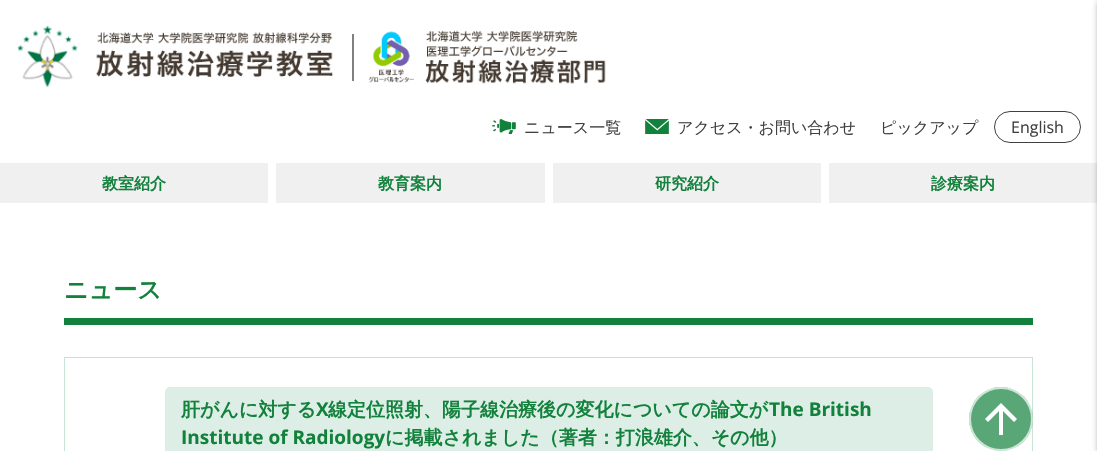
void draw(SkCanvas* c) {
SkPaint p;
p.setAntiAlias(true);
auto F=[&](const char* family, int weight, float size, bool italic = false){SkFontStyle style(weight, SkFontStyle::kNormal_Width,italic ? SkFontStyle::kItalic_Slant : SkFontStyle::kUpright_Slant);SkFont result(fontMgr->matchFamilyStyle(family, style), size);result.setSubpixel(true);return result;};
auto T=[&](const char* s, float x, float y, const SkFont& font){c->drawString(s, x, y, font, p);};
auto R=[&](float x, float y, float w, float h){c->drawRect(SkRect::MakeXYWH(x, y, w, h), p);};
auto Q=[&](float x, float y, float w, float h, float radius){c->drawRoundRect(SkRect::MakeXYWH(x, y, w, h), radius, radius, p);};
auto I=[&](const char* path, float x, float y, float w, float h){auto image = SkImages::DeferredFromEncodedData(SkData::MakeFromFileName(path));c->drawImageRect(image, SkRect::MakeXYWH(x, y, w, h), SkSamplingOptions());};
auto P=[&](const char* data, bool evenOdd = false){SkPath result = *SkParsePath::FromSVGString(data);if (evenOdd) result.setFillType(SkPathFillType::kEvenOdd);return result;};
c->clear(0xffffffff);
I("1.png",17,25,316,63);
p.setColor(0xff808080);
R(352,34,2,47);
I("2.png",368,30,238,54);
I("3.png",492,119,24,15);
auto f1 = F("WenQuanYi Zen Hei",500,16);
p.setColor(0xff404040);
T("ニュース一覧",524,133,f1);
I("4.png",645,119,24,15);
T("アクセス・お問い合わせ",677,133,f1);
T("ピックアップ",880,133,f1);
p.setStroke(true);
p.setStrokeWidth(1);
c->drawRoundRect(SkRect::MakeXYWH(994.5,111.5,86,31),15.5,15.5,p);
auto f2 = F("Open Sans",400,16);
p.setStroke(false);
T("English",1011,133,f2);
p.setColor(0xfff0f0f0);
R(0,163,268,40);
auto f3 = F("WenQuanYi Zen Hei",700,16);
p.setColor(0xff12813c);
T("教室紹介",102,189,f3);
p.setColor(0xfff0f0f0);
R(276,163,269,40);
p.setColor(0xff12813c);
T("教育案内",378,189,f3);
p.setColor(0xfff0f0f0);
R(553,163,268,40);
p.setColor(0xff12813c);
T("研究紹介",655,189,f3);
p.setColor(0xfff0f0f0);
R(829,163,268,40);
p.setColor(0xff12813c);
T("診療案内",931,189,f3);
p.setColor(0x82000000);
p.setMaskFilter(SkMaskFilter::MakeBlur(kNormal_SkBlurStyle, 3));
c->drawRect(SkRect::MakeXYWH(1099,2,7,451),p);
p.setMaskFilter(nullptr);
p.setColor(0xff12813c);
R(64,318,969,7);
auto f4 = F("WenQuanYi Zen Hei",700,24);
T("ニュース",64,298,f4);
p.setStroke(true);
p.setColor(0xffc6e3d4);
c->drawRect(SkRect::MakeXYWH(64.5,357.5,968,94),p);
p.setStroke(false);
p.setColor(0xffdceee5);
Q(165,387,768,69,5);
auto f5 = F("WenQuanYi Zen Hei",700,19);
p.setColor(0xff12813c);
T("肝がんに対する",181,416,f5);
auto f6 = F("Open Sans",700,19);
T("X",316,416,f6);
T("線定位照射、陽子線治療後の変化についての論文が",328,416,f5);
T("The British",769,416,f6);
T("Institute of Radiology",181,444,f6);
T("に掲載されました（著者：打浪雄介、その他）",385,444,f5);
p.setColor(0xb312813c);
c->drawCircle(1001,419,32,p);
p.setStroke(true);
p.setStrokeWidth(2);
p.setColor(0xb3ffffff);
c->drawCircle(1001,419,31,p);
p.setStroke(false);
p.setColor(0xffffffff);
c->drawPath(P("M985 419l3 3l11-11v24h4v-24l11 11l3-3l-16-16z"),p);
}
